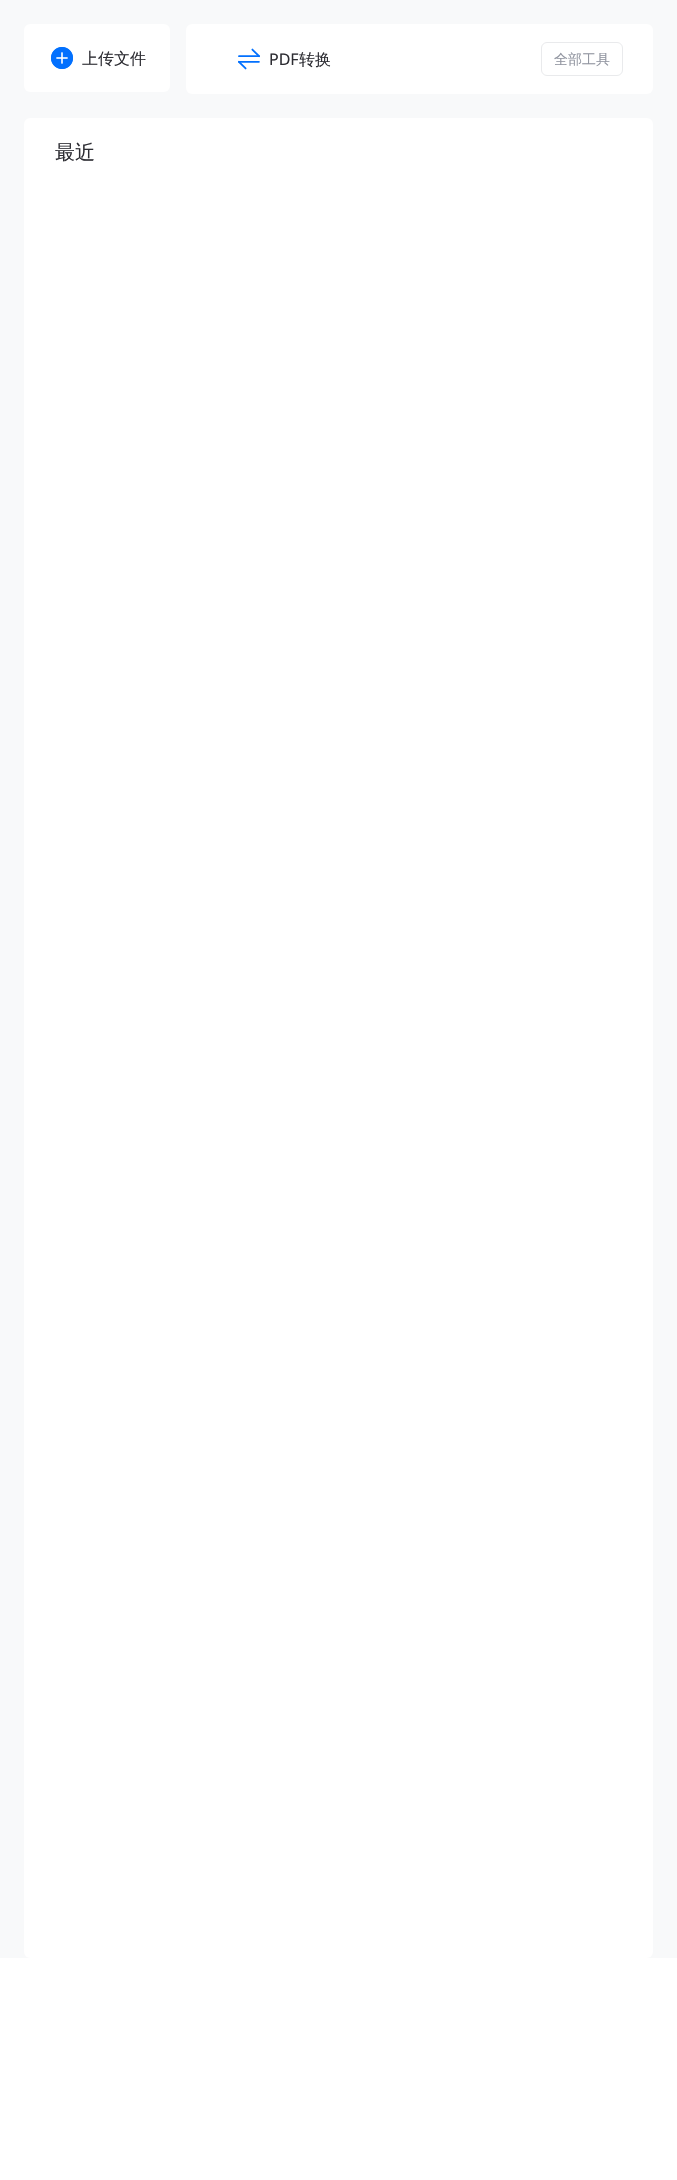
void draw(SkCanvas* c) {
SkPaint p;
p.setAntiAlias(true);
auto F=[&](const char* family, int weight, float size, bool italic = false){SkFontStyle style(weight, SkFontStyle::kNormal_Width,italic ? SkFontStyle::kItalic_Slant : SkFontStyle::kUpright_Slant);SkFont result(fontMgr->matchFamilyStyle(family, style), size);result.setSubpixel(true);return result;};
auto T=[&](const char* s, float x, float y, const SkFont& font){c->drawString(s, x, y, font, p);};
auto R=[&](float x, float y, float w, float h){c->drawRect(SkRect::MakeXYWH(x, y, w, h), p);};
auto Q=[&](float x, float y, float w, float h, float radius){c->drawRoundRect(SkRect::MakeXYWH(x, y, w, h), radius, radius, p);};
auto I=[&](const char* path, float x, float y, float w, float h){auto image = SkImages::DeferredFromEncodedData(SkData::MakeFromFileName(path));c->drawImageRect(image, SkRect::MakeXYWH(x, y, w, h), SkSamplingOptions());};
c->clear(0xffffffff);
p.setColor(0xfff8f9fa);
R(0,0,677,1958);
p.setColor(0xffffffff);
Q(24,24,146,68,6);
I("1.png",51,47,22,22);
auto f1 = F("WenQuanYi Zen Hei",500,16);
p.setColor(0xff2d2d33);
T("上传文件",82,64,f1);
p.setColor(0xffffffff);
Q(186,24,467,70,6);
I("2.png",238,48,22,22);
auto f2 = F("Noto Sans",400,16);
p.setColor(0xff2d2d33);
T("PDF",269,65,f2);
T("转换",299,65,f1);
p.setStroke(true);
p.setStrokeWidth(1);
p.setColor(0xffe9eaec);
c->drawRoundRect(SkRect::MakeXYWH(541.5,42.5,81,33),5.5,5.5,p);
auto f3 = F("WenQuanYi Zen Hei",500,14);
p.setStroke(false);
p.setColor(0xff9195a0);
T("全部工具",554,64,f3);
p.setColor(0xffffffff);
Q(24,118,629,1840,6);
auto f4 = F("WenQuanYi Zen Hei",500,20);
p.setColor(0xff2d2d33);
T("最近",55,159,f4);
}
